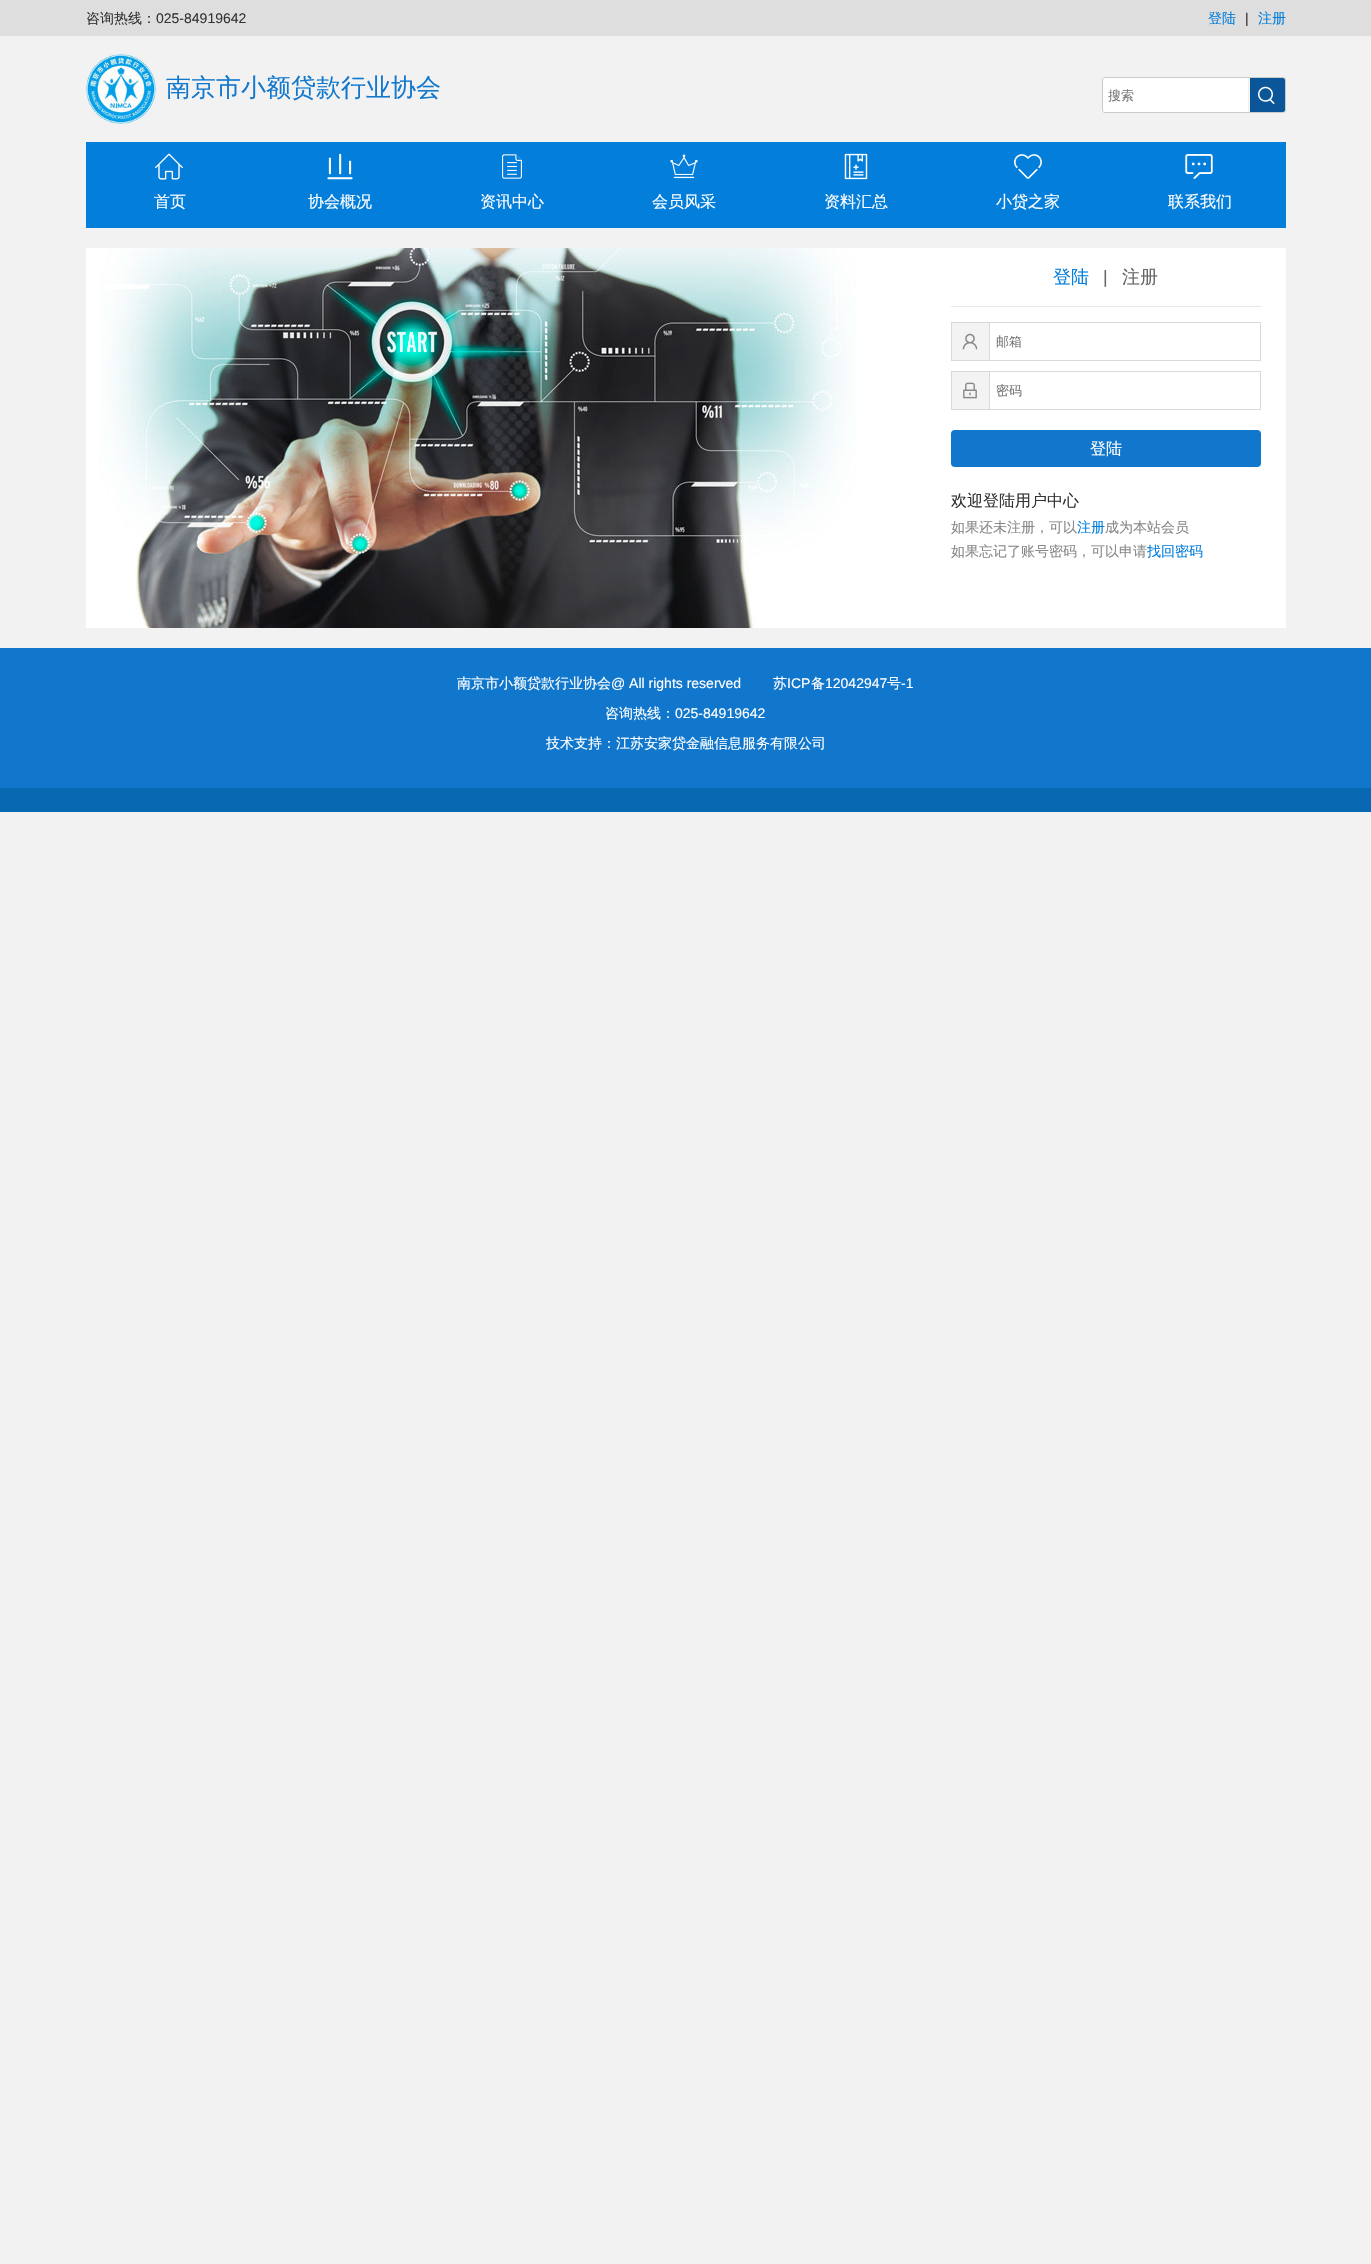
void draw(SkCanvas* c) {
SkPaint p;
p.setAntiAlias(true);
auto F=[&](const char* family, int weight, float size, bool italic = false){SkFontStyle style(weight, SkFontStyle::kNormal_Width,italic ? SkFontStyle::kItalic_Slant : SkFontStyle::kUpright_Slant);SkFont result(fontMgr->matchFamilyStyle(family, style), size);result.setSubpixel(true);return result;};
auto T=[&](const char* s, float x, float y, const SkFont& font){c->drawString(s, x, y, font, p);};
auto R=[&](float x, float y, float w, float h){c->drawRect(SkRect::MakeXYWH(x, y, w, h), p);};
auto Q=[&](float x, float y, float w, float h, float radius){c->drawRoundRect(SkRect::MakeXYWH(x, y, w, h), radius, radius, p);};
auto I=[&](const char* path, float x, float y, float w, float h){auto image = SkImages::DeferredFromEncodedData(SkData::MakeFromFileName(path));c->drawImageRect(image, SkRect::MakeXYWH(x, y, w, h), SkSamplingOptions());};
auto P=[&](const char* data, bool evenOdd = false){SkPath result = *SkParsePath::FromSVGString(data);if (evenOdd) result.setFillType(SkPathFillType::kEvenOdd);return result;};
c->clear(0xfff2f2f2);
p.setColor(0xffdfdede);
R(0,0,1371,36);
auto f1 = F("WenQuanYi Zen Hei",500,14);
p.setColor(0xff333333);
T("咨询热线：",86,23,f1);
auto f2 = F("Liberation Sans",400,14);
T("025-84919642",156,23,f2);
p.setColor(0xff037edb);
T("登陆",1208,23,f1);
p.setColor(0xff333333);
T("|",1245,23,f2);
p.setColor(0xff037edb);
T("注册",1258,23,f1);
I("1.png",86,54,70,70);
auto f3 = F("WenQuanYi Zen Hei",500,25);
p.setColor(0xff1178cd);
T("南京市小额贷款行业协会",166,96,f3);
p.setStroke(true);
p.setStrokeWidth(1);
p.setColor(0xffcbcbcb);
c->drawRoundRect(SkRect::MakeXYWH(1102.5,77.5,183,35),2.5,2.5,p);
p.setStroke(false);
p.setColor(0xffffffff);
c->drawPath(P("M1105 78h143v34h-143c-1 0-2-1-2-2v-30c0-1 1-2 2-2z"),p);
auto f4 = F("WenQuanYi Zen Hei",500,13);
p.setColor(0xff757575);
T("搜索",1108,100,f4);
p.setColor(0xff0b5698);
c->drawPath(P("M1250 78h33c1 0 2 1 2 2v30c0 1-1 2-2 2h-33z"),p);
I("2.png",1258,86,17,18);
p.setColor(0xff037edb);
R(86,142,1200,86);
I("3.png",155,153,28,27);
auto f5 = F("WenQuanYi Zen Hei",500,16);
p.setColor(0xffffffff);
T("首页",154,207,f5);
I("4.png",327,153,26,27);
T("协会概况",308,207,f5);
I("5.png",502,154,20,25);
T("资讯中心",480,207,f5);
I("6.png",670,154,28,25);
T("会员风采",652,207,f5);
I("7.png",844,153,24,27);
T("资料汇总",824,207,f5);
I("8.png",1014,154,28,25);
T("小贷之家",996,207,f5);
I("9.png",1185,154,28,25);
T("联系我们",1168,207,f5);
R(86,248,1200,380);
I("10.png",99,248,758,380);
p.setColor(0xffe7e7e7);
R(951,306,310,1);
auto f6 = F("WenQuanYi Zen Hei",500,18);
p.setColor(0xff037edb);
T("登陆",1053,283,f6);
auto f7 = F("Liberation Sans",400,18);
p.setColor(0xff666666);
T("|",1103,283,f7);
T("注册",1122,283,f6);
p.setStroke(true);
p.setColor(0xffd7dadb);
c->drawRect(SkRect::MakeXYWH(951.5,322.5,309,38),p);
p.setStroke(false);
p.setColor(0xfff3f3f3);
R(952,323,37,37);
p.setColor(0xffd7dadb);
R(989,323,1,37);
I("11.png",962,333,16,17);
p.setColor(0xff757575);
T("邮箱",996,346,f4);
p.setStroke(true);
p.setColor(0xffd7dadb);
c->drawRect(SkRect::MakeXYWH(951.5,371.5,309,38),p);
p.setStroke(false);
p.setColor(0xfff3f3f3);
R(952,372,37,37);
p.setColor(0xffd7dadb);
R(989,372,1,37);
I("12.png",963,382,14,17);
p.setColor(0xff757575);
T("密码",996,395,f4);
p.setColor(0xff1077cc);
Q(951,430,310,37,4);
p.setColor(0xffffffff);
T("登陆",1090,454,f5);
p.setColor(0xff333333);
T("欢迎登陆用户中心",951,506,f5);
p.setColor(0xff888888);
T("如果还未注册，可以",951,532,f1);
p.setColor(0xff037edb);
T("注册",1077,532,f1);
p.setColor(0xff888888);
T("成为本站会员",1105,532,f1);
T("如果忘记了账号密码，可以申请",951,556,f1);
p.setColor(0xff037edb);
T("找回密码",1147,556,f1);
p.setColor(0xff1077cc);
R(0,648,1371,140);
p.setColor(0xffffffff);
T("南京市小额贷款行业协会",457,688,f1);
T("@ All rights reserved",611,688,f2);
T("苏",773,688,f1);
T("ICP",787,688,f2);
T("备",811,688,f1);
T("12042947",825,688,f2);
T("号",887,688,f1);
T("-1",901,688,f2);
T("咨询热线：",605,718,f1);
T("025-84919642",675,718,f2);
T("技术支持：江苏安家贷金融信息服务有限公司",546,748,f1);
p.setColor(0xff0868b2);
R(0,788,1371,24);
}
